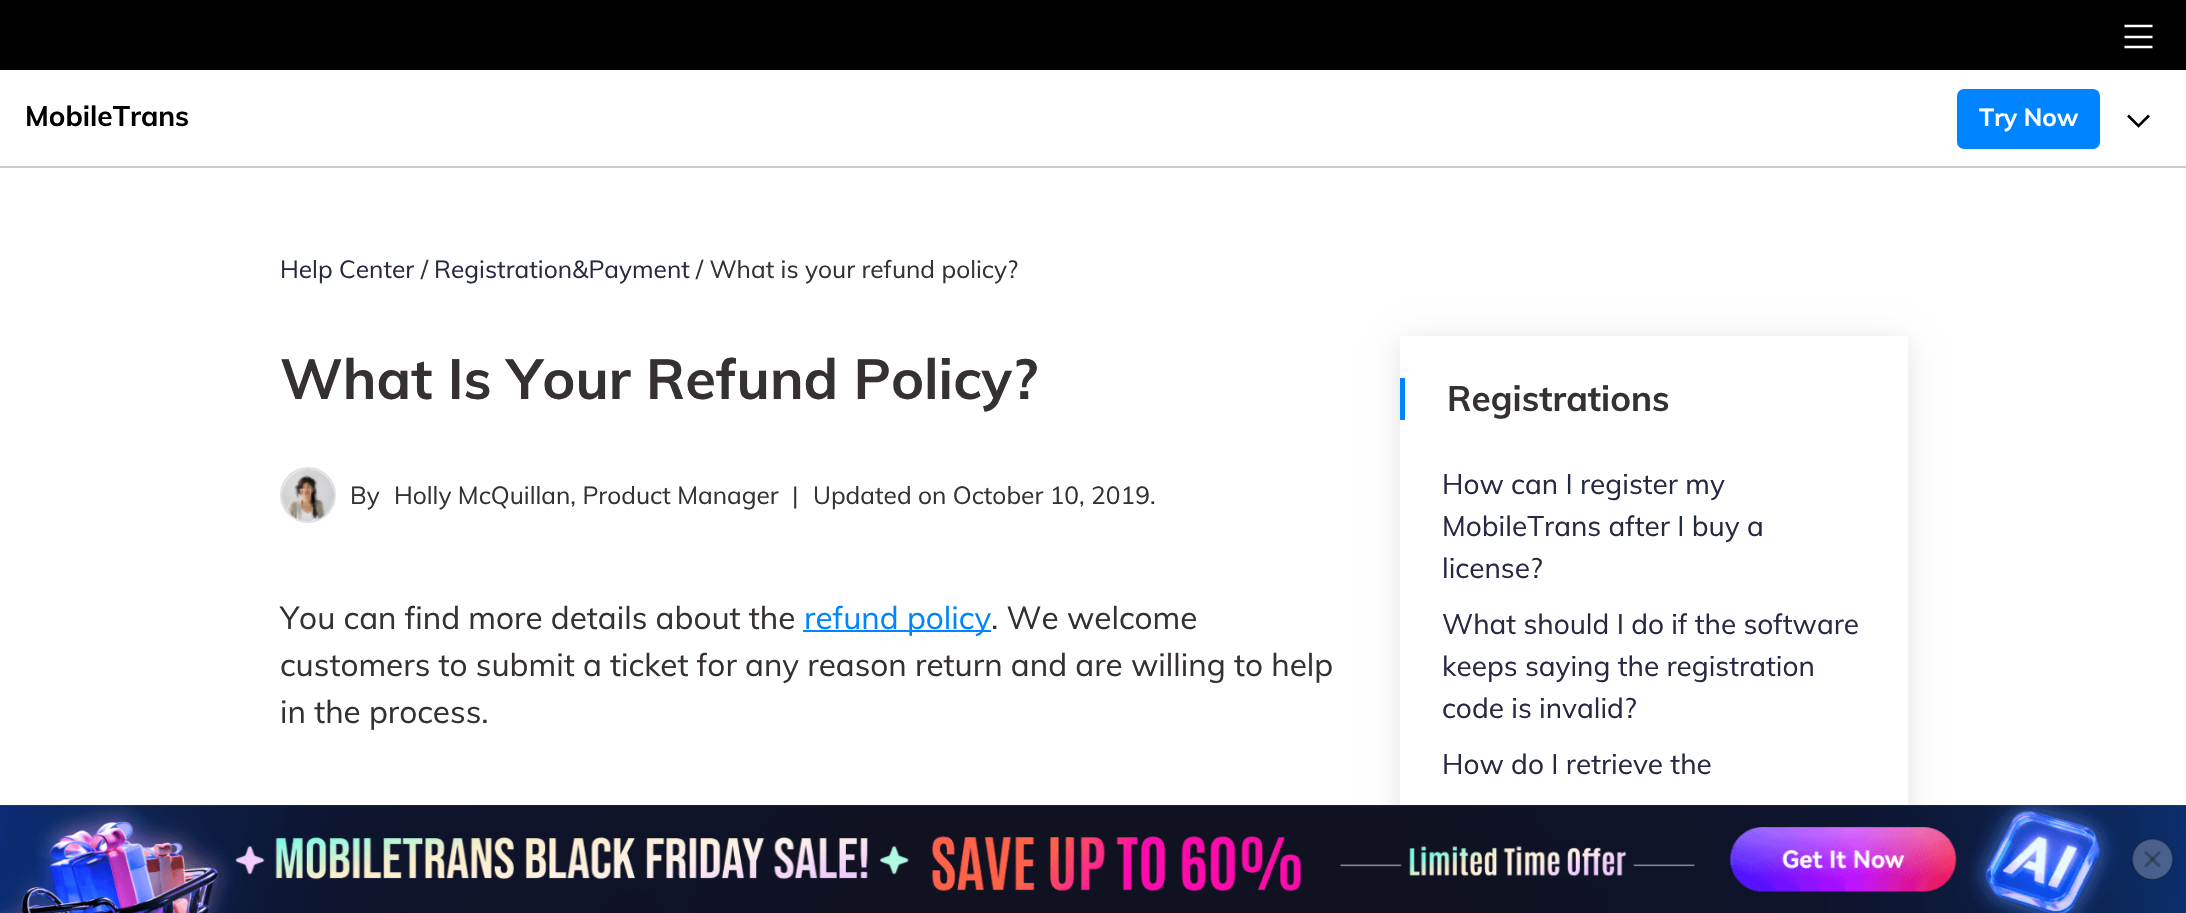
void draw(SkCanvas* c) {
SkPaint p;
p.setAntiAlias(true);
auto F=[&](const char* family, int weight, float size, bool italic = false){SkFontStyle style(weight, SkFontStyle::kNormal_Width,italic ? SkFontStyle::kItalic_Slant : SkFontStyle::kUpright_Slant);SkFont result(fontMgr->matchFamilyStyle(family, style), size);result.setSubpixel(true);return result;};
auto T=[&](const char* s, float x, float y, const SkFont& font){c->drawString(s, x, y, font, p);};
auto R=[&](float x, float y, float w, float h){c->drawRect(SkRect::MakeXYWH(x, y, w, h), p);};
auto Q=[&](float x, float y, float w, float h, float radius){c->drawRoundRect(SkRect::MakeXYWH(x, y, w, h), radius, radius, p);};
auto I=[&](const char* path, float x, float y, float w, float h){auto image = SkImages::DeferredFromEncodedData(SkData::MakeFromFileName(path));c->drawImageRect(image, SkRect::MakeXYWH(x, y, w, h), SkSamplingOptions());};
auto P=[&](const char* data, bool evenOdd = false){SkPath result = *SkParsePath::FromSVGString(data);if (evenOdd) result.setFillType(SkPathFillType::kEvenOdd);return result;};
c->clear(0xffffffff);
p.setColor(0xff000000);
R(0,0,2186,70);
p.setStroke(true);
p.setStrokeWidth(2.6);
p.setColor(0xffffffff);
c->drawPath(P("M2124.5 26h28m0 11h-28m28 10h-28"),p);
p.setStroke(false);
p.setColor(0xffcccccc);
R(0,166,2186,2);
auto f1 = F("Muli",700,28);
p.setColor(0xff000000);
T("MobileTrans",25,126,f1);
p.setColor(0xff0084ff);
Q(1957,89,143,60,7);
auto f2 = F("Muli",700,24.5);
p.setColor(0xffffffff);
T("Try Now",1979,126,f2);
p.setStroke(true);
p.setColor(0xff000000);
c->drawPath(P("M2128 115.5l10.5 10.5l10.5-10.5"),p);
auto f3 = F("Muli",400,24.5);
p.setStroke(false);
p.setColor(0xff262942);
T("Help Center",280,278,f3);
p.setColor(0xff353031);
T("/",421,278,f3);
p.setColor(0xff262942);
T("Registration&Payment",434,278,f3);
p.setColor(0xff353031);
T("/ What is your refund policy?",696,278,f3);
auto f4 = F("Muli",700,56);
T("What Is Your Refund Policy?",280,399,f4);
p.setStroke(true);
p.setStrokeWidth(2);
p.setColor(0xffdee2e6);
c->drawCircle(308,495,27,p);
I("1.png",282,469,52,52);
p.setStroke(false);
p.setColor(0xff353031);
T("By",350,504,f3);
T("Holly McQuillan, Product Manager",394,504,f3);
T("|",792,504,f3);
T("Updated on October 10, 2019.",813,504,f3);
auto f5 = F("Muli",400,31.5);
T("You can find more details about the",280,629,f5);
p.setColor(0xff0084ff);
R(803,630,188,2);
T("refund policy",804,629,f5);
p.setColor(0xff353031);
T(". We welcome",991,629,f5);
T("customers to submit a ticket for any reason return and are willing to help",280,676,f5);
T("in the process.",280,723,f5);
p.setColor(0x1c000000);
p.setMaskFilter(SkMaskFilter::MakeBlur(kNormal_SkBlurStyle, 14));
c->drawRect(SkRect::MakeXYWH(1400,341,508,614),p);
p.setMaskFilter(nullptr);
p.setColor(0xffffffff);
R(1400,336,508,470);
p.setColor(0xff0084ff);
R(1400,378,5,42);
auto f6 = F("Muli",700,35);
p.setColor(0xff353031);
T("Registrations",1447,411,f6);
auto f7 = F("Muli",400,28);
p.setColor(0xff262942);
T("How can I register my",1442,494,f7);
T("MobileTrans after I buy a",1442,536,f7);
T("license?",1442,578,f7);
T("What should I do if the software",1442,634,f7);
T("keeps saying the registration",1442,676,f7);
T("code is invalid?",1442,718,f7);
T("How do I retrieve the",1442,774,f7);
I("2.png",0,805,2186,108);
I("3.png",2132,838,42,42);
}
